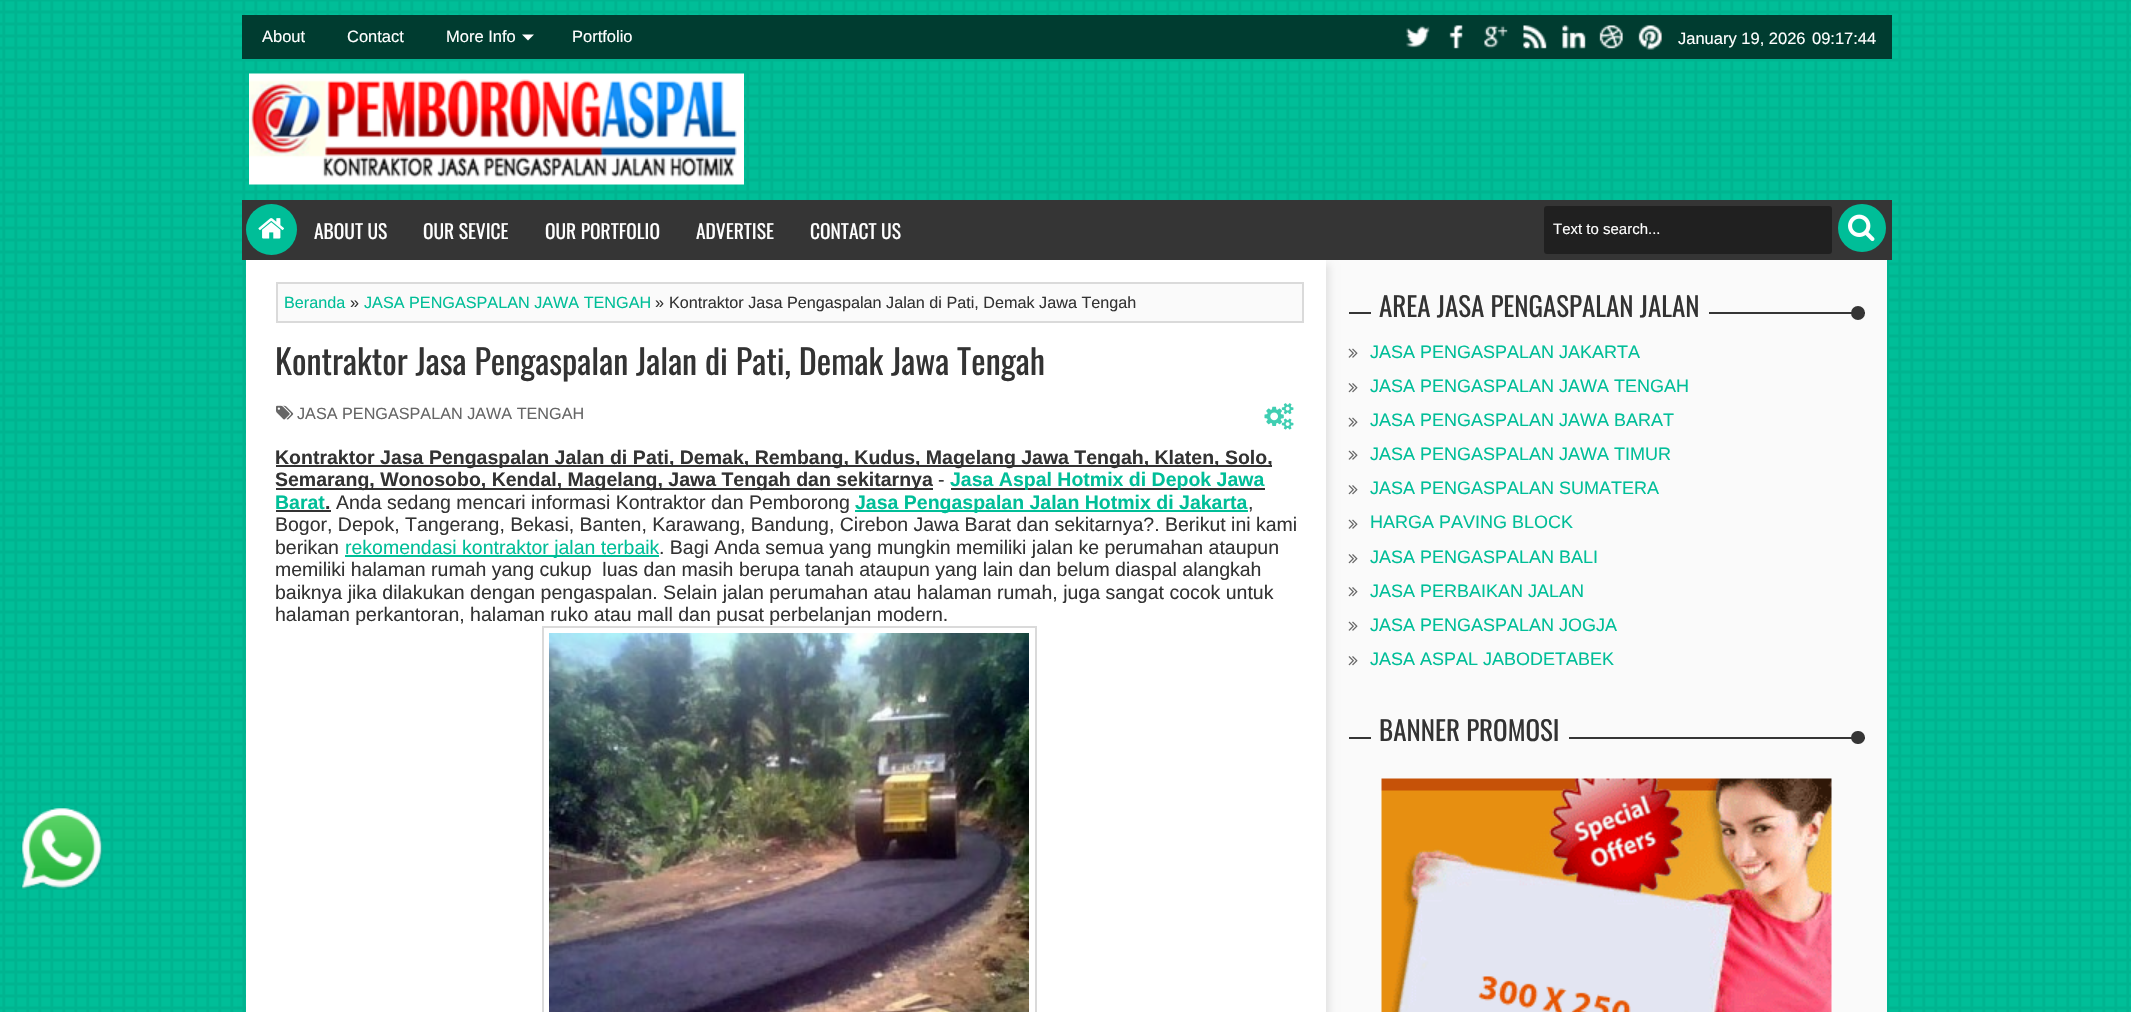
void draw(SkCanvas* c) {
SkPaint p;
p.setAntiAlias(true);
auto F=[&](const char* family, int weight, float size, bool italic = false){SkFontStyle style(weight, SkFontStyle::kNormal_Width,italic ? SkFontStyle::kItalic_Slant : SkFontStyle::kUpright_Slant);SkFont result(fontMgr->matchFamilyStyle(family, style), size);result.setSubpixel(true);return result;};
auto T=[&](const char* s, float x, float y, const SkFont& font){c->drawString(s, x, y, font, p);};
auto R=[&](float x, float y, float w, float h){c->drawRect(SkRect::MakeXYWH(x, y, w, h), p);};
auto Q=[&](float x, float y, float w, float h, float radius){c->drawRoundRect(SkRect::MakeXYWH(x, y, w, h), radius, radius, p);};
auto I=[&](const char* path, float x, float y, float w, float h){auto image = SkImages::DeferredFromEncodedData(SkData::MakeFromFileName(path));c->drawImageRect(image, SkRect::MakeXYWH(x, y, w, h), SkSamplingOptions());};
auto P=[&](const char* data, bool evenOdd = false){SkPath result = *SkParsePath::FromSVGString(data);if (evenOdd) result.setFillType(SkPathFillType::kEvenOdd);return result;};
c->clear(0xff00be98);
I("1.png",0,0,2131,1012);
p.setColor(0xff003c30);
R(242,15,1650,44);
auto f1 = F("Liberation Sans",400,16.5);
p.setColor(0xffffffff);
T("About",262,42,f1);
T("Contact",347,42,f1);
T("More Info",446,42,f1);
c->drawPath(P("M522 34.5h12l-6 6z"),p);
T("Portfolio",572,42,f1);
I("2.png",1406,25,24,23);
I("3.png",1449,25,14,24);
I("4.png",1484,25,24,24);
I("5.png",1523,25,24,24);
I("6.png",1562,25,24,24);
I("7.png",1599,25,24,24);
I("8.png",1638,25,24,25);
T("January 19, 2026",1678,44,f1);
T("09:17:44",1812,44,f1);
I("9.png",249,73,495,112);
p.setColor(0xfffafafa);
R(1326,260,561,752);
p.setColor(0x1a000000);
p.setMaskFilter(SkMaskFilter::MakeBlur(kNormal_SkBlurStyle, 4));
c->drawRect(SkRect::MakeXYWH(249,264,1080,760),p);
p.setMaskFilter(nullptr);
p.setColor(0xff353535);
R(242,200,1650,60);
p.setColor(0xff00be98);
c->drawCircle(271.5,229.5,25.5,p);
I("10.png",258,218,26,21);
auto f2 = F("Oswald",400,19.5);
p.setColor(0xffffffff);
T("ABOUT US",314,239,f2);
T("OUR SEVICE",423,239,f2);
T("OUR PORTFOLIO",545,239,f2);
T("ADVERTISE",696,239,f2);
T("CONTACT US",810,239,f2);
p.setColor(0xff202020);
Q(1544,206,288,48,3);
auto f3 = F("Liberation Sans",400,15);
p.setColor(0xffffffff);
T("Text to search...",1553,234,f3);
p.setColor(0xff00be98);
c->drawCircle(1862,228,24,p);
I("11.png",1848,214,27,28);
p.setColor(0xffffffff);
R(246,260,1080,752);
p.setColor(0xfffafafa);
c->drawRect(SkRect::MakeXYWH(277,283,1026,39),p);
p.setStroke(true);
p.setStrokeWidth(2);
p.setColor(0xffdadada);
c->drawRect(SkRect::MakeXYWH(277,283,1026,39),p);
auto f4 = F("Liberation Sans",400,16.2);
p.setStroke(false);
p.setColor(0xff00be98);
T("Beranda",284,308,f4);
p.setColor(0xff333333);
T("»",350,308,f4);
p.setColor(0xff00be98);
T("JASA PENGASPALAN JAWA TENGAH",364,308,f4);
p.setColor(0xff333333);
T("»",655,308,f4);
T("Kontraktor Jasa Pengaspalan Jalan di Pati, Demak Jawa Tengah",669,308,f4);
auto f5 = F("Oswald",400,34.2);
T("Kontraktor Jasa Pengaspalan Jalan di Pati, Demak Jawa Tengah",275,375,f5);
I("12.png",276,405,18,15);
p.setColor(0xff666666);
T("JASA PENGASPALAN JAWA TENGAH",297,419,f4);
I("13.png",1264,403,30,27);
p.setColor(0xff333333);
R(722,465,550,2);
auto f6 = F("Liberation Sans",700,19.5);
T("k, Rembang, Kudus, Magelang Jawa Tengah, Klaten, Solo,",733,464,f6);
R(276,488,657,2);
T("Semarang, Wonosobo, Kendal, Magelang, Jawa Tengah dan sekitarnya",275,486,f6);
auto f7 = F("Liberation Sans",400,19.5);
T("-",938,486,f7);
R(951,488,314,2);
p.setColor(0xff00be98);
T("Jasa Aspal Hotmix di Depok Jawa",950,486,f6);
T("Barat",275,509,f6);
p.setColor(0xff333333);
T(".",325,509,f6);
R(276,510,55,2);
T("Anda sedang mencari informasi Kontraktor dan Pemborong",336,509,f7);
p.setColor(0xff00be98);
R(855,510,393,2);
T("Jasa Pengaspalan Jalan Hotmix di Jakarta",855,509,f6);
p.setColor(0xff333333);
T(",",1248,509,f7);
T("Bogor, Depok, Tangerang, Bekasi, Banten, Karawang, Bandung, Cirebon Jawa Barat dan sekitarnya?. Berikut ini kami",275,531,f7);
T("berikan",275,554,f7);
p.setColor(0xff00be98);
R(345,555,314,2);
T("rekomendasi kontraktor jalan terbaik",345,554,f7);
p.setColor(0xff333333);
T(". Bagi Anda semua yang mungkin memiliki jalan ke perumahan ataupun",659,554,f7);
T("memiliki halaman rumah yang cukup  luas dan masih berupa tanah ataupun yang lain dan belum diaspal alangkah",275,576,f7);
T("baiknya jika dilakukan dengan pengaspalan. Selain jalan perumahan atau halaman rumah, juga sangat cocok untuk",275,599,f7);
T("halaman perkantoran, halaman ruko atau mall dan pusat perbelanjan modern.",275,621,f7);
p.setStroke(true);
p.setColor(0xffdadada);
c->drawRect(SkRect::MakeXYWH(543,627,493,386),p);
I("14.png",549,633,480,379);
p.setStroke(false);
p.setColor(0xff333333);
R(276,465,371,2);
T("Kontraktor Jasa Pengaspalan Jalan di P",275,464,f6);
R(657,465,65,2);
T("ti, Dema",657,464,f6);
T("a",646,464,f6);
R(647,465,10,2);
p.setColor(0xff353535);
R(1349,312,516,2);
p.setColor(0xfffafafa);
R(1371,312,338,2);
auto f8 = F("Oswald",400,27);
p.setColor(0xff333333);
T("AREA JASA PENGASPALAN JALAN",1379,317,f8);
p.setColor(0xff353535);
c->drawCircle(1858,313,7,p);
I("15.png",1348,348,10,10);
auto f9 = F("Liberation Sans",400,18);
p.setColor(0xff00be98);
T("JASA PENGASPALAN JAKARTA",1370,358,f9);
I("16.png",1348,383,10,10);
T("JASA PENGASPALAN JAWA TENGAH",1370,392,f9);
I("15.png",1348,417,10,10);
T("JASA PENGASPALAN JAWA BARAT",1370,426,f9);
I("15.png",1348,450,10,10);
T("JASA PENGASPALAN JAWA TIMUR",1370,460,f9);
I("16.png",1348,485,10,10);
T("JASA PENGASPALAN SUMATERA",1370,494,f9);
I("15.png",1348,519,10,10);
T("HARGA PAVING BLOCK",1370,528,f9);
I("16.png",1348,554,10,10);
T("JASA PENGASPALAN BALI",1370,563,f9);
I("16.png",1348,587,10,10);
T("JASA PERBAIKAN JALAN",1370,597,f9);
I("15.png",1348,621,10,10);
T("JASA PENGASPALAN JOGJA",1370,631,f9);
I("16.png",1348,656,10,10);
T("JASA ASPAL JABODETABEK",1370,665,f9);
p.setColor(0xff353535);
R(1349,737,516,2);
p.setColor(0xfffafafa);
R(1371,737,198,2);
p.setColor(0xff333333);
T("BANNER PROMOSI",1379,741,f8);
p.setColor(0xff353535);
Q(1851,731,14,13,6.5);
I("17.png",20,807,83,83);
I("18.png",1381,778,451,234);
}
